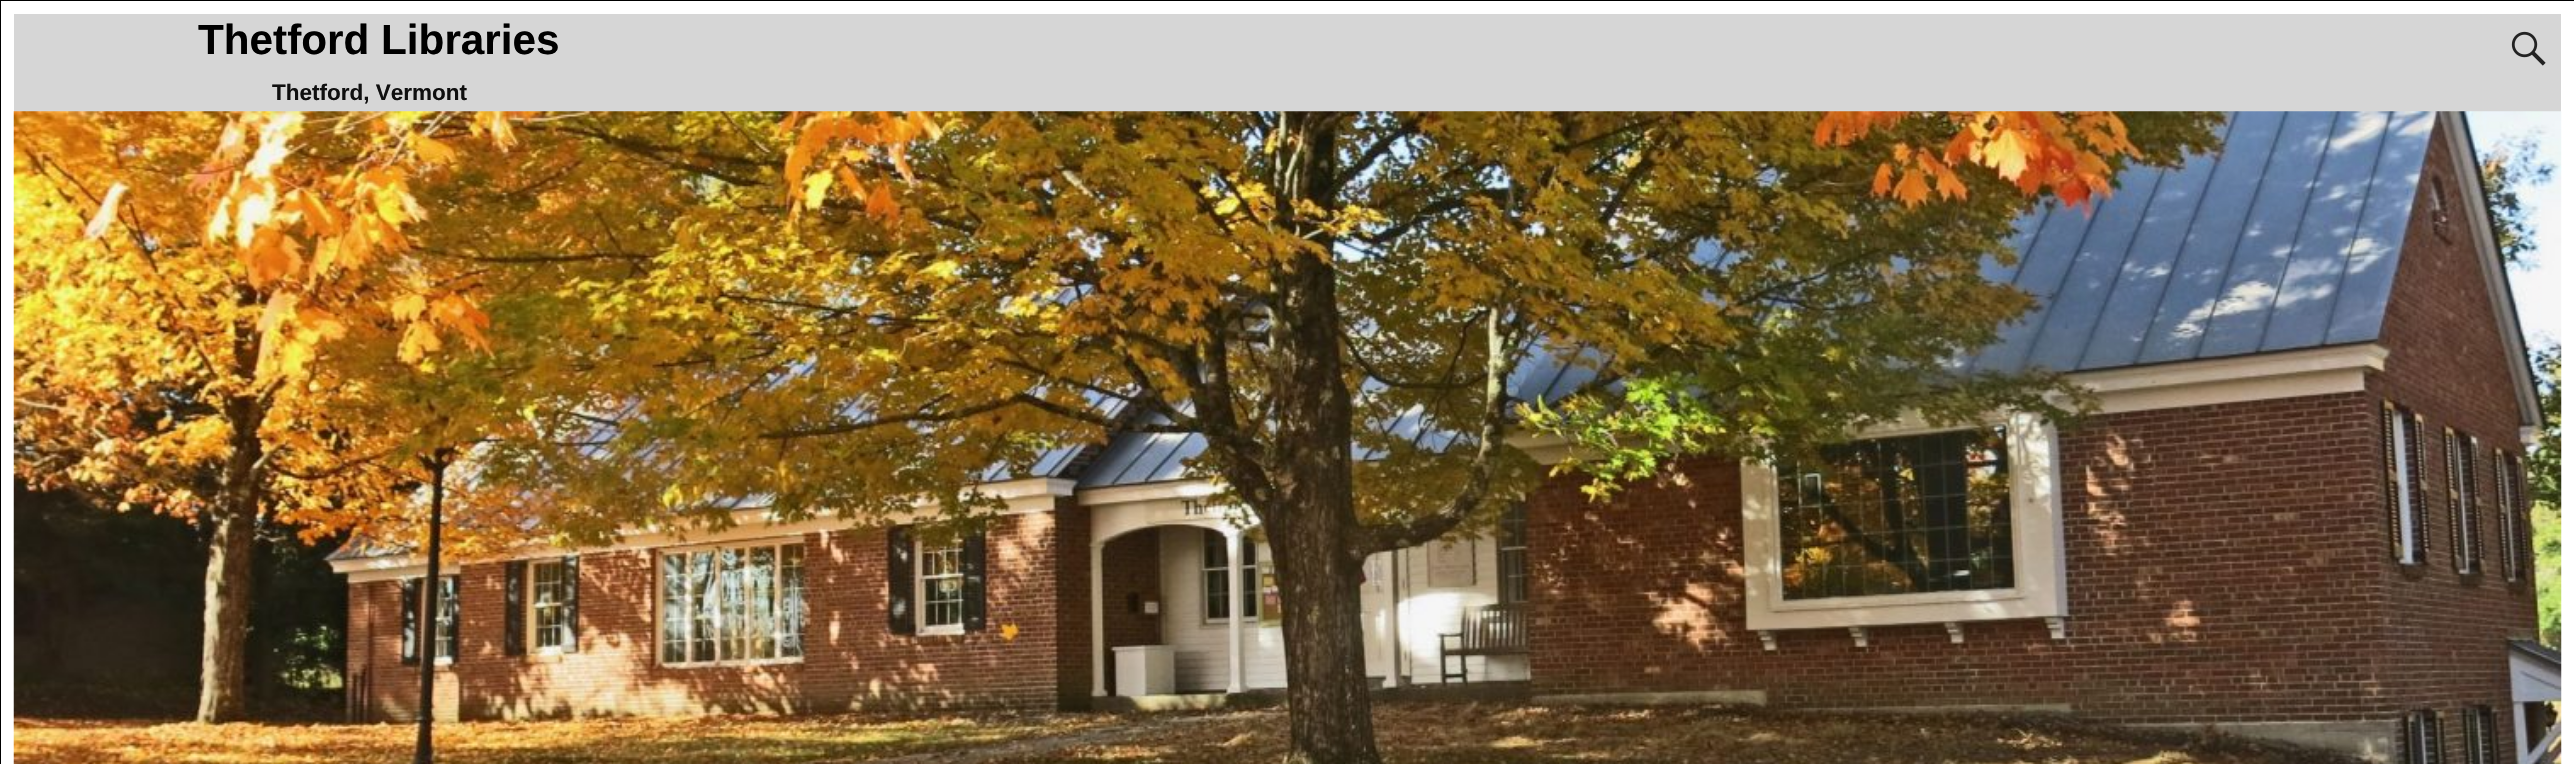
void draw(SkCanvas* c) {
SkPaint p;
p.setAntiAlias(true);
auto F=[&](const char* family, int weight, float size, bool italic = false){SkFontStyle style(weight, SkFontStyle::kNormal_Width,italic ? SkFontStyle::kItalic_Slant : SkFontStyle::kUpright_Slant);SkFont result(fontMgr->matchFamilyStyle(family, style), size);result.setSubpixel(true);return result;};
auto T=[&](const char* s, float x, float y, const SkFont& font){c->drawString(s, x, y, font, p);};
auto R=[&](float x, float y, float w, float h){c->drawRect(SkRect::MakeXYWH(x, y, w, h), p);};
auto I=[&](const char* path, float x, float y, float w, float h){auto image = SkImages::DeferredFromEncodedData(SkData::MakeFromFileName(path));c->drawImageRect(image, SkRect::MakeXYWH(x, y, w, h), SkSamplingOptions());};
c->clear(0xffffffff);
p.setStroke(true);
p.setStrokeWidth(1);
p.setColor(0xff000000);
c->drawRect(SkRect::MakeXYWH(.5,.5,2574,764),p);
p.setStroke(false);
p.setColor(0xffd6d6d6);
R(14,14,2547,98);
auto f1 = F("Liberation Sans",700,42.25);
p.setColor(0xff000000);
T("Thetford Libraries",198,54,f1);
I("1.png",2511,31,35,35);
auto f2 = F("Liberation Sans",700,22.5);
p.setColor(0xff0f0f0f);
T("Thetford, Vermont",272,100,f2);
I("2.png",13,111,2549,653);
}
